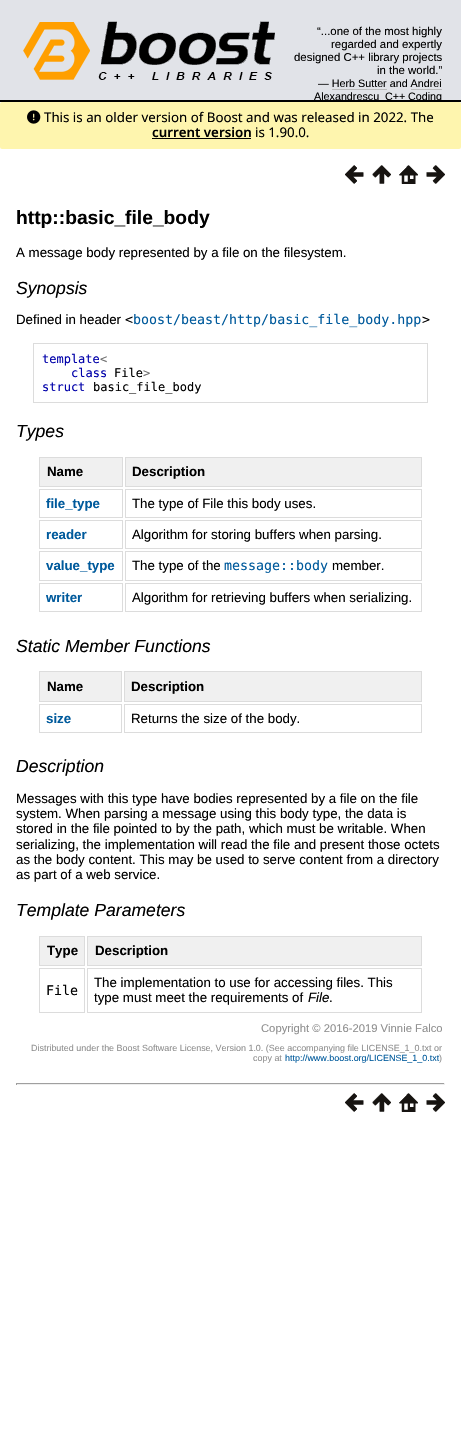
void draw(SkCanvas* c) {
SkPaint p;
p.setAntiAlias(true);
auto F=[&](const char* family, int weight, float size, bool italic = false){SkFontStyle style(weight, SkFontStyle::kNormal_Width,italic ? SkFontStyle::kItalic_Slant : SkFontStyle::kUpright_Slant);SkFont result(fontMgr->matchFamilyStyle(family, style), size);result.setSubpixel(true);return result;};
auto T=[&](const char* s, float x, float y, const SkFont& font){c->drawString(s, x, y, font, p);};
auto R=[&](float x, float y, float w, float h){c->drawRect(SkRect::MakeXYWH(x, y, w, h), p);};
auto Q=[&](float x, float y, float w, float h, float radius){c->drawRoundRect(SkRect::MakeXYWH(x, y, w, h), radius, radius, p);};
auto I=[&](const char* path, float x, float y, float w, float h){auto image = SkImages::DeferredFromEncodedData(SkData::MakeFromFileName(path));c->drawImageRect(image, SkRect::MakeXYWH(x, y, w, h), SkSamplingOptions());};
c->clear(0xffffffff);
p.setColor(0xffe1e3e8);
R(0,0,461,100);
p.setColor(0xff000000);
R(0,100,461,2);
I("1.png",23,21,252,59);
auto f1 = F("Liberation Sans",400,11.4);
T("“...one of the most highly",317,35,f1);
T("regarded and expertly",331,48,f1);
T("designed C++ library projects",294,61,f1);
T("in the world.”",377,74,f1);
auto f2 = F("Liberation Sans",400,10.75);
T("— Herb Sutter and Andrei",318,87,f2);
p.setColor(0xffbbbbbb);
R(332,89,55,1);
p.setColor(0xff000000);
T("Alexandrescu",314,100,f2);
p.setColor(0xffbbbbbb);
R(411,89,31,1);
p.setColor(0xff000000);
T("C++",385,100,f2);
c->save();
c->clipRect(SkRect::MakeXYWH(0,0,461,100));
T("Coding",408,100,f2);
c->restore();
p.setColor(0xfffef5ae);
Q(0,102,461,47,2);
I("2.png",27,110,14,14);
auto f3 = F("Noto Sans",400,13.3);
p.setColor(0xff000000);
T("This is an older version of Boost and was released in 2022. The",44,122,f3);
auto f4 = F("Noto Sans",600,13.3);
T("current version",152,137,f4);
R(152,138,99,1);
T("is 1.90.0.",255,137,f3);
I("3.png",345,165,19,19);
I("4.png",372,165,19,19);
I("5.png",399,165,19,19);
I("6.png",426,165,19,19);
auto f5 = F("Liberation Sans",700,19.25);
T("http::basic_file_body",16,224,f5);
auto f6 = F("Liberation Sans",400,13.3);
T("A message body represented by a file on the filesystem.",16,257,f6);
auto f7 = F("Liberation Sans",400,17.6,true);
T("Synopsis",16,294,f7);
T("Defined in header",16,324,f6);
auto f8 = F("DejaVu Sans Mono",400,13.3);
T("<",125,324,f8);
p.setColor(0xff005a9c);
T("boost/beast/http/basic_file_body.hpp",133,324,f8);
p.setColor(0xff000000);
T(">",422,324,f8);
p.setStroke(true);
p.setStrokeWidth(1);
p.setColor(0xffdcdcdc);
c->drawRect(SkRect::MakeXYWH(33.5,343.5,394,59),p);
auto f9 = F("DejaVu Sans Mono",400,12);
p.setStroke(false);
p.setColor(0xff0000aa);
T("template",42,363,f9);
p.setColor(0xff707070);
T("<",100,363,f9);
p.setColor(0xff0000aa);
T("class",71,377,f9);
p.setColor(0xff000000);
T("File",114,377,f9);
p.setColor(0xff707070);
T(">",143,377,f9);
p.setColor(0xff0000aa);
T("struct",42,391,f9);
p.setColor(0xff000000);
T("basic_file_body",93,391,f9);
T("Types",16,437,f7);
p.setColor(0xfff0f0f0);
c->drawRect(SkRect::MakeXYWH(39.5,457.5,83,29),p);
p.setStroke(true);
p.setColor(0xffdcdcdc);
c->drawRect(SkRect::MakeXYWH(39.5,457.5,83,29),p);
auto f10 = F("Liberation Sans",700,13.3);
p.setStroke(false);
p.setColor(0xff000000);
T("Name",47,476,f10);
p.setColor(0xfff0f0f0);
c->drawRect(SkRect::MakeXYWH(125.5,457.5,296,29),p);
p.setStroke(true);
p.setColor(0xffdcdcdc);
c->drawRect(SkRect::MakeXYWH(125.5,457.5,296,29),p);
p.setStroke(false);
p.setColor(0xff000000);
T("Description",132,476,f10);
p.setStroke(true);
p.setColor(0xffdcdcdc);
c->drawRect(SkRect::MakeXYWH(39.5,489.5,83,28),p);
p.setStroke(false);
p.setColor(0xff005a9c);
T("file_type",46,508,f10);
p.setStroke(true);
p.setColor(0xffdcdcdc);
c->drawRect(SkRect::MakeXYWH(125.5,489.5,296,28),p);
p.setStroke(false);
p.setColor(0xff000000);
T("The type of File this body uses.",132,508,f6);
p.setStroke(true);
p.setColor(0xffdcdcdc);
c->drawRect(SkRect::MakeXYWH(39.5,520.5,83,28),p);
p.setStroke(false);
p.setColor(0xff005a9c);
T("reader",46,539,f10);
p.setStroke(true);
p.setColor(0xffdcdcdc);
c->drawRect(SkRect::MakeXYWH(125.5,520.5,296,28),p);
p.setStroke(false);
p.setColor(0xff000000);
T("Algorithm for storing buffers when parsing.",132,539,f6);
p.setStroke(true);
p.setColor(0xffdcdcdc);
c->drawRect(SkRect::MakeXYWH(39.5,551.5,83,29),p);
p.setStroke(false);
p.setColor(0xff005a9c);
T("value_type",46,570,f10);
p.setStroke(true);
p.setColor(0xffdcdcdc);
c->drawRect(SkRect::MakeXYWH(125.5,551.5,296,29),p);
p.setStroke(false);
p.setColor(0xff000000);
T("The type of the",132,570,f6);
p.setColor(0xff005a9c);
T("message::body",224,570,f8);
p.setColor(0xff000000);
T("member.",332,570,f6);
p.setStroke(true);
p.setColor(0xffdcdcdc);
c->drawRect(SkRect::MakeXYWH(39.5,583.5,83,28),p);
p.setStroke(false);
p.setColor(0xff005a9c);
T("writer",46,602,f10);
p.setStroke(true);
p.setColor(0xffdcdcdc);
c->drawRect(SkRect::MakeXYWH(125.5,583.5,296,28),p);
p.setStroke(false);
p.setColor(0xff000000);
T("Algorithm for retrieving buffers when serializing.",132,602,f6);
T("Static Member Functions",16,652,f7);
p.setColor(0xfff0f0f0);
c->drawRect(SkRect::MakeXYWH(39.5,671.5,82,30),p);
p.setStroke(true);
p.setColor(0xffdcdcdc);
c->drawRect(SkRect::MakeXYWH(39.5,671.5,82,30),p);
p.setStroke(false);
p.setColor(0xff000000);
T("Name",47,691,f10);
p.setColor(0xfff0f0f0);
c->drawRect(SkRect::MakeXYWH(124.5,671.5,297,30),p);
p.setStroke(true);
p.setColor(0xffdcdcdc);
c->drawRect(SkRect::MakeXYWH(124.5,671.5,297,30),p);
p.setStroke(false);
p.setColor(0xff000000);
T("Description",131,691,f10);
p.setStroke(true);
p.setColor(0xffdcdcdc);
c->drawRect(SkRect::MakeXYWH(39.5,704.5,82,28),p);
p.setStroke(false);
p.setColor(0xff005a9c);
T("size",46,723,f10);
p.setStroke(true);
p.setColor(0xffdcdcdc);
c->drawRect(SkRect::MakeXYWH(124.5,704.5,297,28),p);
p.setStroke(false);
p.setColor(0xff000000);
T("Returns the size of the body.",131,723,f6);
T("Description",16,772,f7);
T("Messages with this type have bodies represented by a file on the file",16,803,f6);
T("system. When parsing a message using this body type, the data is",16,818,f6);
T("stored in the file pointed to by the path, which must be writable. When",16,833,f6);
T("serializing, the implementation will read the file and present those octets",16,849,f6);
T("as the body content. This may be used to serve content from a directory",16,864,f6);
T("as part of a web service.",16,879,f6);
T("Template Parameters",16,916,f7);
p.setColor(0xfff0f0f0);
c->drawRect(SkRect::MakeXYWH(39.5,936.5,45,29),p);
p.setStroke(true);
p.setColor(0xffdcdcdc);
c->drawRect(SkRect::MakeXYWH(39.5,936.5,45,29),p);
p.setStroke(false);
p.setColor(0xff000000);
T("Type",47,955,f10);
p.setColor(0xfff0f0f0);
c->drawRect(SkRect::MakeXYWH(87.5,936.5,334,29),p);
p.setStroke(true);
p.setColor(0xffdcdcdc);
c->drawRect(SkRect::MakeXYWH(87.5,936.5,334,29),p);
p.setStroke(false);
p.setColor(0xff000000);
T("Description",95,955,f10);
p.setStroke(true);
p.setColor(0xffdcdcdc);
c->drawRect(SkRect::MakeXYWH(39.5,968.5,45,44),p);
p.setStroke(false);
p.setColor(0xff000000);
T("File",46,995,f8);
p.setStroke(true);
p.setColor(0xffdcdcdc);
c->drawRect(SkRect::MakeXYWH(87.5,968.5,334,44),p);
p.setStroke(false);
p.setColor(0xff000000);
T("The implementation to use for accessing files. This",94,987,f6);
T("type must meet the requirements of",94,1002,f6);
auto f11 = F("Liberation Sans",400,13.3,true);
T("File",308,1002,f11);
T(".",329,1002,f6);
auto f12 = F("Liberation Sans",400,11.25);
p.setColor(0xff8f8f8f);
T("Copyright © 2016-2019 Vinnie Falco",261,1032,f12);
auto f13 = F("Liberation Sans",400,8.95);
T("Distributed under the Boost Software License, Version 1.0. (See accompanying file LICENSE_1_0.txt or",31,1051,f13);
T("copy at",253,1061,f13);
p.setColor(0xff005a9c);
T("http://www.boost.org/LICENSE_1_0.txt",285,1061,f13);
p.setColor(0xff8f8f8f);
T(")",439,1061,f13);
p.setColor(0xff9f9f9f);
R(16,1083,429,1);
p.setColor(0xffeeeeee);
R(444,1083,1,2);
R(16,1084,429,1);
p.setColor(0xff9f9f9f);
R(16,1083,1,2);
I("3.png",345,1093,19,19);
I("4.png",372,1093,19,19);
I("5.png",399,1093,19,19);
I("6.png",426,1093,19,19);
}
